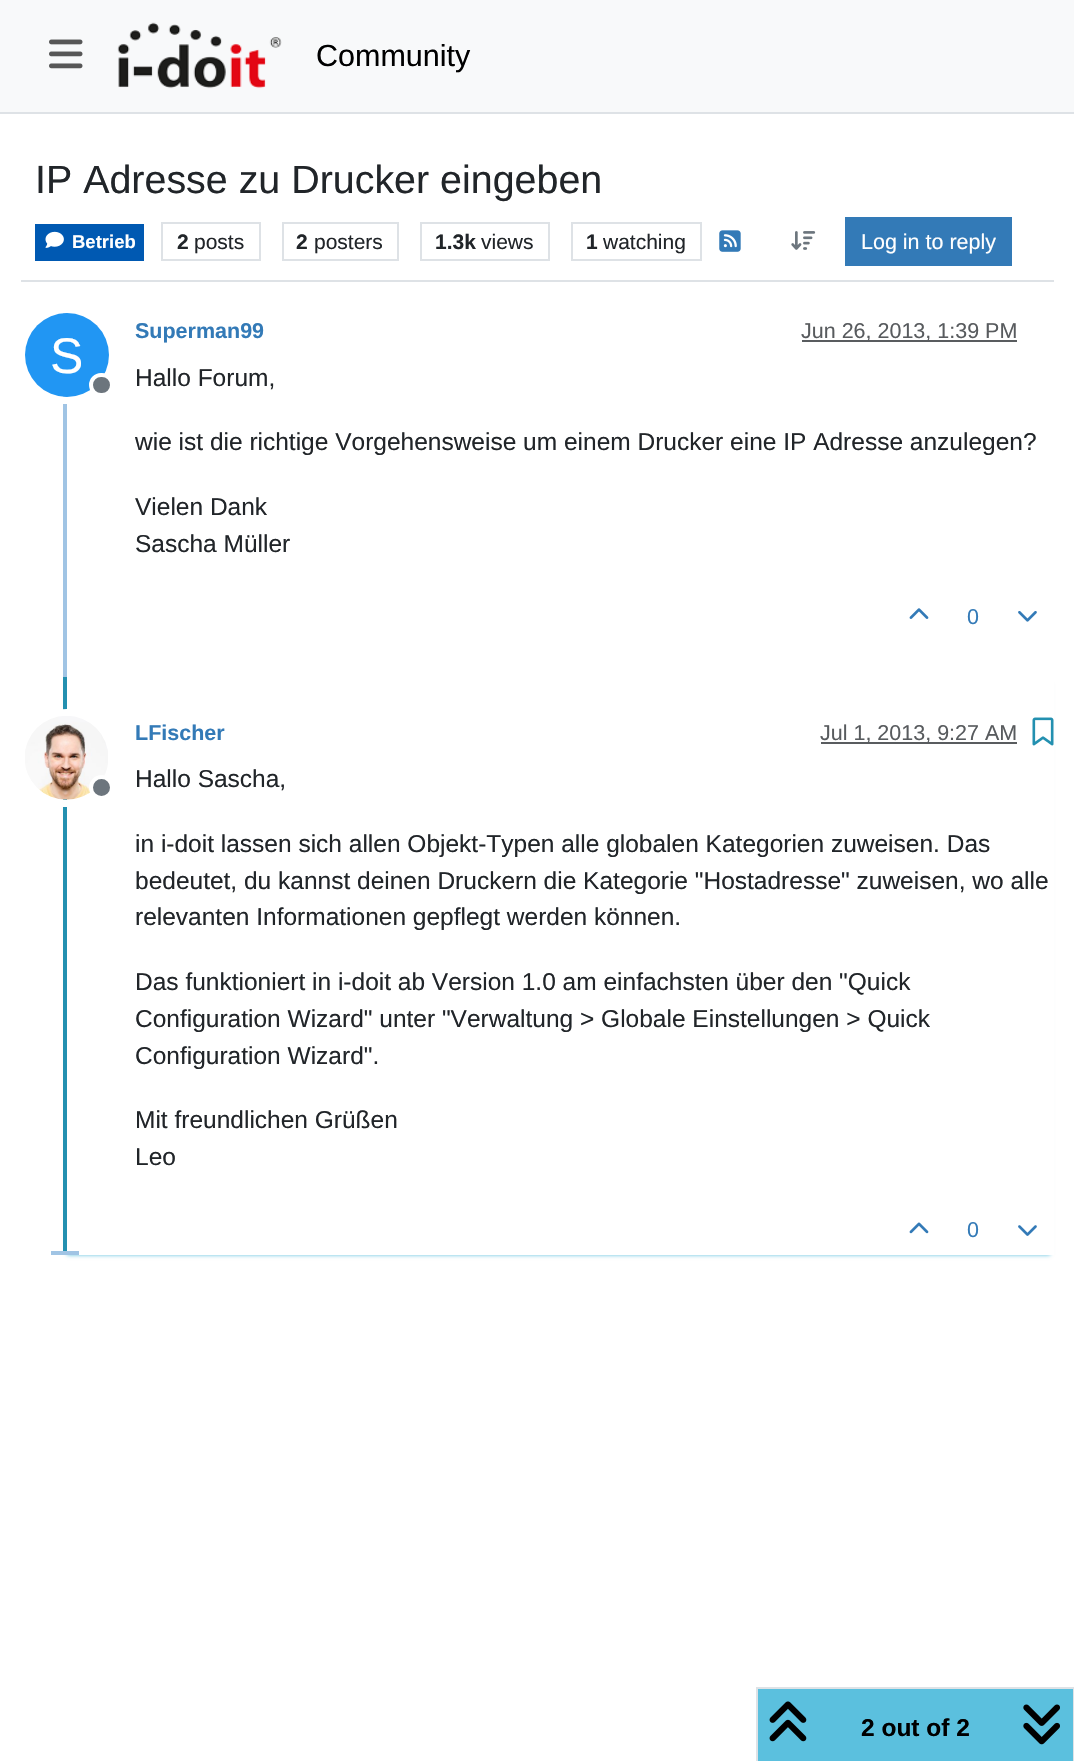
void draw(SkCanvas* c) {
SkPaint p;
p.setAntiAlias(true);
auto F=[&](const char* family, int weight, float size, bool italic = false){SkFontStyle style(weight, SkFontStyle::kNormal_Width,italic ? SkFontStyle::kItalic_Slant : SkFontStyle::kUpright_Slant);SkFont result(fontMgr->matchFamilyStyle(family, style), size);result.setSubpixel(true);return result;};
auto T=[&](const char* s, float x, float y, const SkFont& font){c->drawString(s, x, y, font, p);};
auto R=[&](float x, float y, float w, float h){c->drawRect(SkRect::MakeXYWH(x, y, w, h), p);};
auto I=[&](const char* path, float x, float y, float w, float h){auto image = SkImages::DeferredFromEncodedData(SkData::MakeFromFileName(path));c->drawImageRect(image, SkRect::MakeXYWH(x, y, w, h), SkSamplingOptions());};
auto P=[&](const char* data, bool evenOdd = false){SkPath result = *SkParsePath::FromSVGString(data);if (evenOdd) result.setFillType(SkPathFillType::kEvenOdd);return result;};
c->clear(0xffffffff);
p.setColor(0xfff8f9fa);
R(0,0,1074,112);
p.setColor(0xffdee2e6);
R(0,112,1074,2);
I("1.png",49,39,34,30);
I("2.png",117,22,165,67);
auto f1 = F("Liberation Sans",400,30.5);
p.setColor(0xff000000);
T("Community",316,66,f1);
p.setColor(0xffdee2e6);
R(21,280,1033,2);
auto f2 = F("Liberation Sans",400,39.4);
p.setColor(0xff212529);
T("IP Adresse zu Drucker eingeben",35,193,f2);
p.setColor(0xff0059b2);
R(35,224,109,37);
I("3.png",45,231,19,17);
auto f3 = F("Liberation Sans",700,18.5);
p.setColor(0xffffffff);
T("Betrieb",72,248,f3);
p.setStroke(true);
p.setStrokeWidth(2);
p.setColor(0xffdee2e6);
c->drawRect(SkRect::MakeXYWH(162,223,98,37),p);
auto f4 = F("Liberation Sans",700,21);
p.setStroke(false);
p.setColor(0xff212529);
T("2",177,249,f4);
auto f5 = F("Liberation Sans",400,21);
T("posts",194,249,f5);
p.setStroke(true);
p.setColor(0xffdee2e6);
c->drawRect(SkRect::MakeXYWH(283,223,115,37),p);
p.setStroke(false);
p.setColor(0xff212529);
T("2",296,249,f4);
T("posters",314,249,f5);
p.setStroke(true);
p.setColor(0xffdee2e6);
c->drawRect(SkRect::MakeXYWH(421,223,128,37),p);
p.setStroke(false);
p.setColor(0xff212529);
T("1.3k",435,249,f4);
T("views",481,249,f5);
p.setStroke(true);
p.setColor(0xffdee2e6);
c->drawRect(SkRect::MakeXYWH(572,223,129,37),p);
p.setStroke(false);
p.setColor(0xff212529);
T("1",586,249,f4);
T("watching",603,249,f5);
I("4.png",719,230,22,22);
I("5.png",791,231,25,19);
p.setColor(0xff337ab7);
R(845,217,167,49);
auto f6 = F("Liberation Sans",400,21.5);
p.setColor(0xffffffff);
T("Log in to reply",861,249,f6);
p.setColor(0xffa0c4e4);
R(63,310,4,367);
auto f7 = F("Liberation Sans",700,21.5);
p.setColor(0xff337ab7);
T("Superman99",135,338,f7);
p.setColor(0xff595c5f);
R(802,340,215,2);
p.setColor(0xff585b5e);
T("Jun 26, 2013, 1:39 PM",801,338,f6);
p.setStroke(true);
p.setStrokeWidth(7);
p.setColor(0xffffffff);
c->drawCircle(67,355,45.5,p);
p.setStroke(false);
p.setColor(0xff2196f3);
c->drawCircle(67,355,42,p);
auto f8 = F("Liberation Sans",400,50);
p.setColor(0xffffffff);
T("S",50,373,f8);
p.setColor(0xff6c757d);
c->drawRoundRect(SkRect::MakeXYWH(91,375,21,20),10,10,p);
p.setStroke(true);
p.setStrokeWidth(4);
p.setColor(0xffffffff);
c->drawRoundRect(SkRect::MakeXYWH(91,375,21,20),10,10,p);
auto f9 = F("Liberation Sans",400,24.5);
p.setStroke(false);
p.setColor(0xff212529);
T("Hallo Forum,",135,386,f9);
T("wie ist die richtige Vorgehensweise um einem Drucker eine IP Adresse anzulegen?",135,450,f9);
T("Vielen Dank",135,515,f9);
T("Sascha Müller",135,552,f9);
I("6.png",909,608,20,11);
p.setColor(0xff337ab7);
T("0",967,624,f6);
I("7.png",1018,611,19,11);
c->save();
c->clipPath(P("M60 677h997v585h-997zm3 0h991v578h-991z",true),true);
p.setColor(0xff5bc0de);
p.setMaskFilter(SkMaskFilter::MakeBlur(kNormal_SkBlurStyle, 2));
c->drawRect(SkRect::MakeXYWH(67,684,983,571),p);
p.setMaskFilter(nullptr);
c->restore();
p.setColor(0xff2390b0);
R(63,677,4,578);
p.setStroke(true);
p.setStrokeWidth(7);
p.setColor(0xffffffff);
c->drawCircle(67,758,45.5,p);
I("8.png",25,716,83,84);
p.setStroke(false);
p.setColor(0xff6c757d);
c->drawCircle(101.5,787.5,10.5,p);
p.setStroke(true);
p.setStrokeWidth(4);
p.setColor(0xffffffff);
c->drawCircle(101.5,787.5,10.5,p);
p.setStroke(false);
p.setColor(0xff337ab7);
T("LFischer",135,740,f7);
p.setColor(0xff595c5f);
R(821,742,196,2);
p.setColor(0xff585b5e);
T("Jul 1, 2013, 9:27 AM",820,740,f6);
I("9.png",1032,717,22,29);
p.setColor(0xff212529);
T("Hallo Sascha,",135,787,f9);
T("in i-doit lassen sich allen Objekt-Typen alle globalen Kategorien zuweisen. Das",135,852,f9);
T("bedeutet, du kannst deinen Druckern die Kategorie \"Hostadresse\" zuweisen, wo alle",135,889,f9);
T("relevanten Informationen gepflegt werden können.",135,925,f9);
T("Das funktioniert in i-doit ab Version 1.0 am einfachsten über den \"Quick",135,990,f9);
T("Configuration Wizard\" unter \"Verwaltung > Globale Einstellungen > Quick",135,1027,f9);
T("Configuration Wizard\".",135,1064,f9);
T("Mit freundlichen Grüßen",135,1128,f9);
T("Leo",135,1165,f9);
I("10.png",909,1222,20,12);
p.setColor(0xff337ab7);
T("0",967,1237,f6);
I("11.png",1018,1225,19,11);
p.setColor(0xffa0c4e4);
R(51,1251,28,4);
p.setStroke(true);
p.setStrokeWidth(2);
p.setColor(0xffdee2e6);
c->drawRect(SkRect::MakeXYWH(757,1688,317,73),p);
p.setStroke(false);
p.setColor(0xff5bc0de);
R(758,1689,315,72);
I("12.png",769,1701,38,41);
auto f10 = F("Liberation Sans",700,24.5);
p.setColor(0xff000000);
T("2 out of 2",861,1736,f10);
I("13.png",1023,1704,37,41);
}
